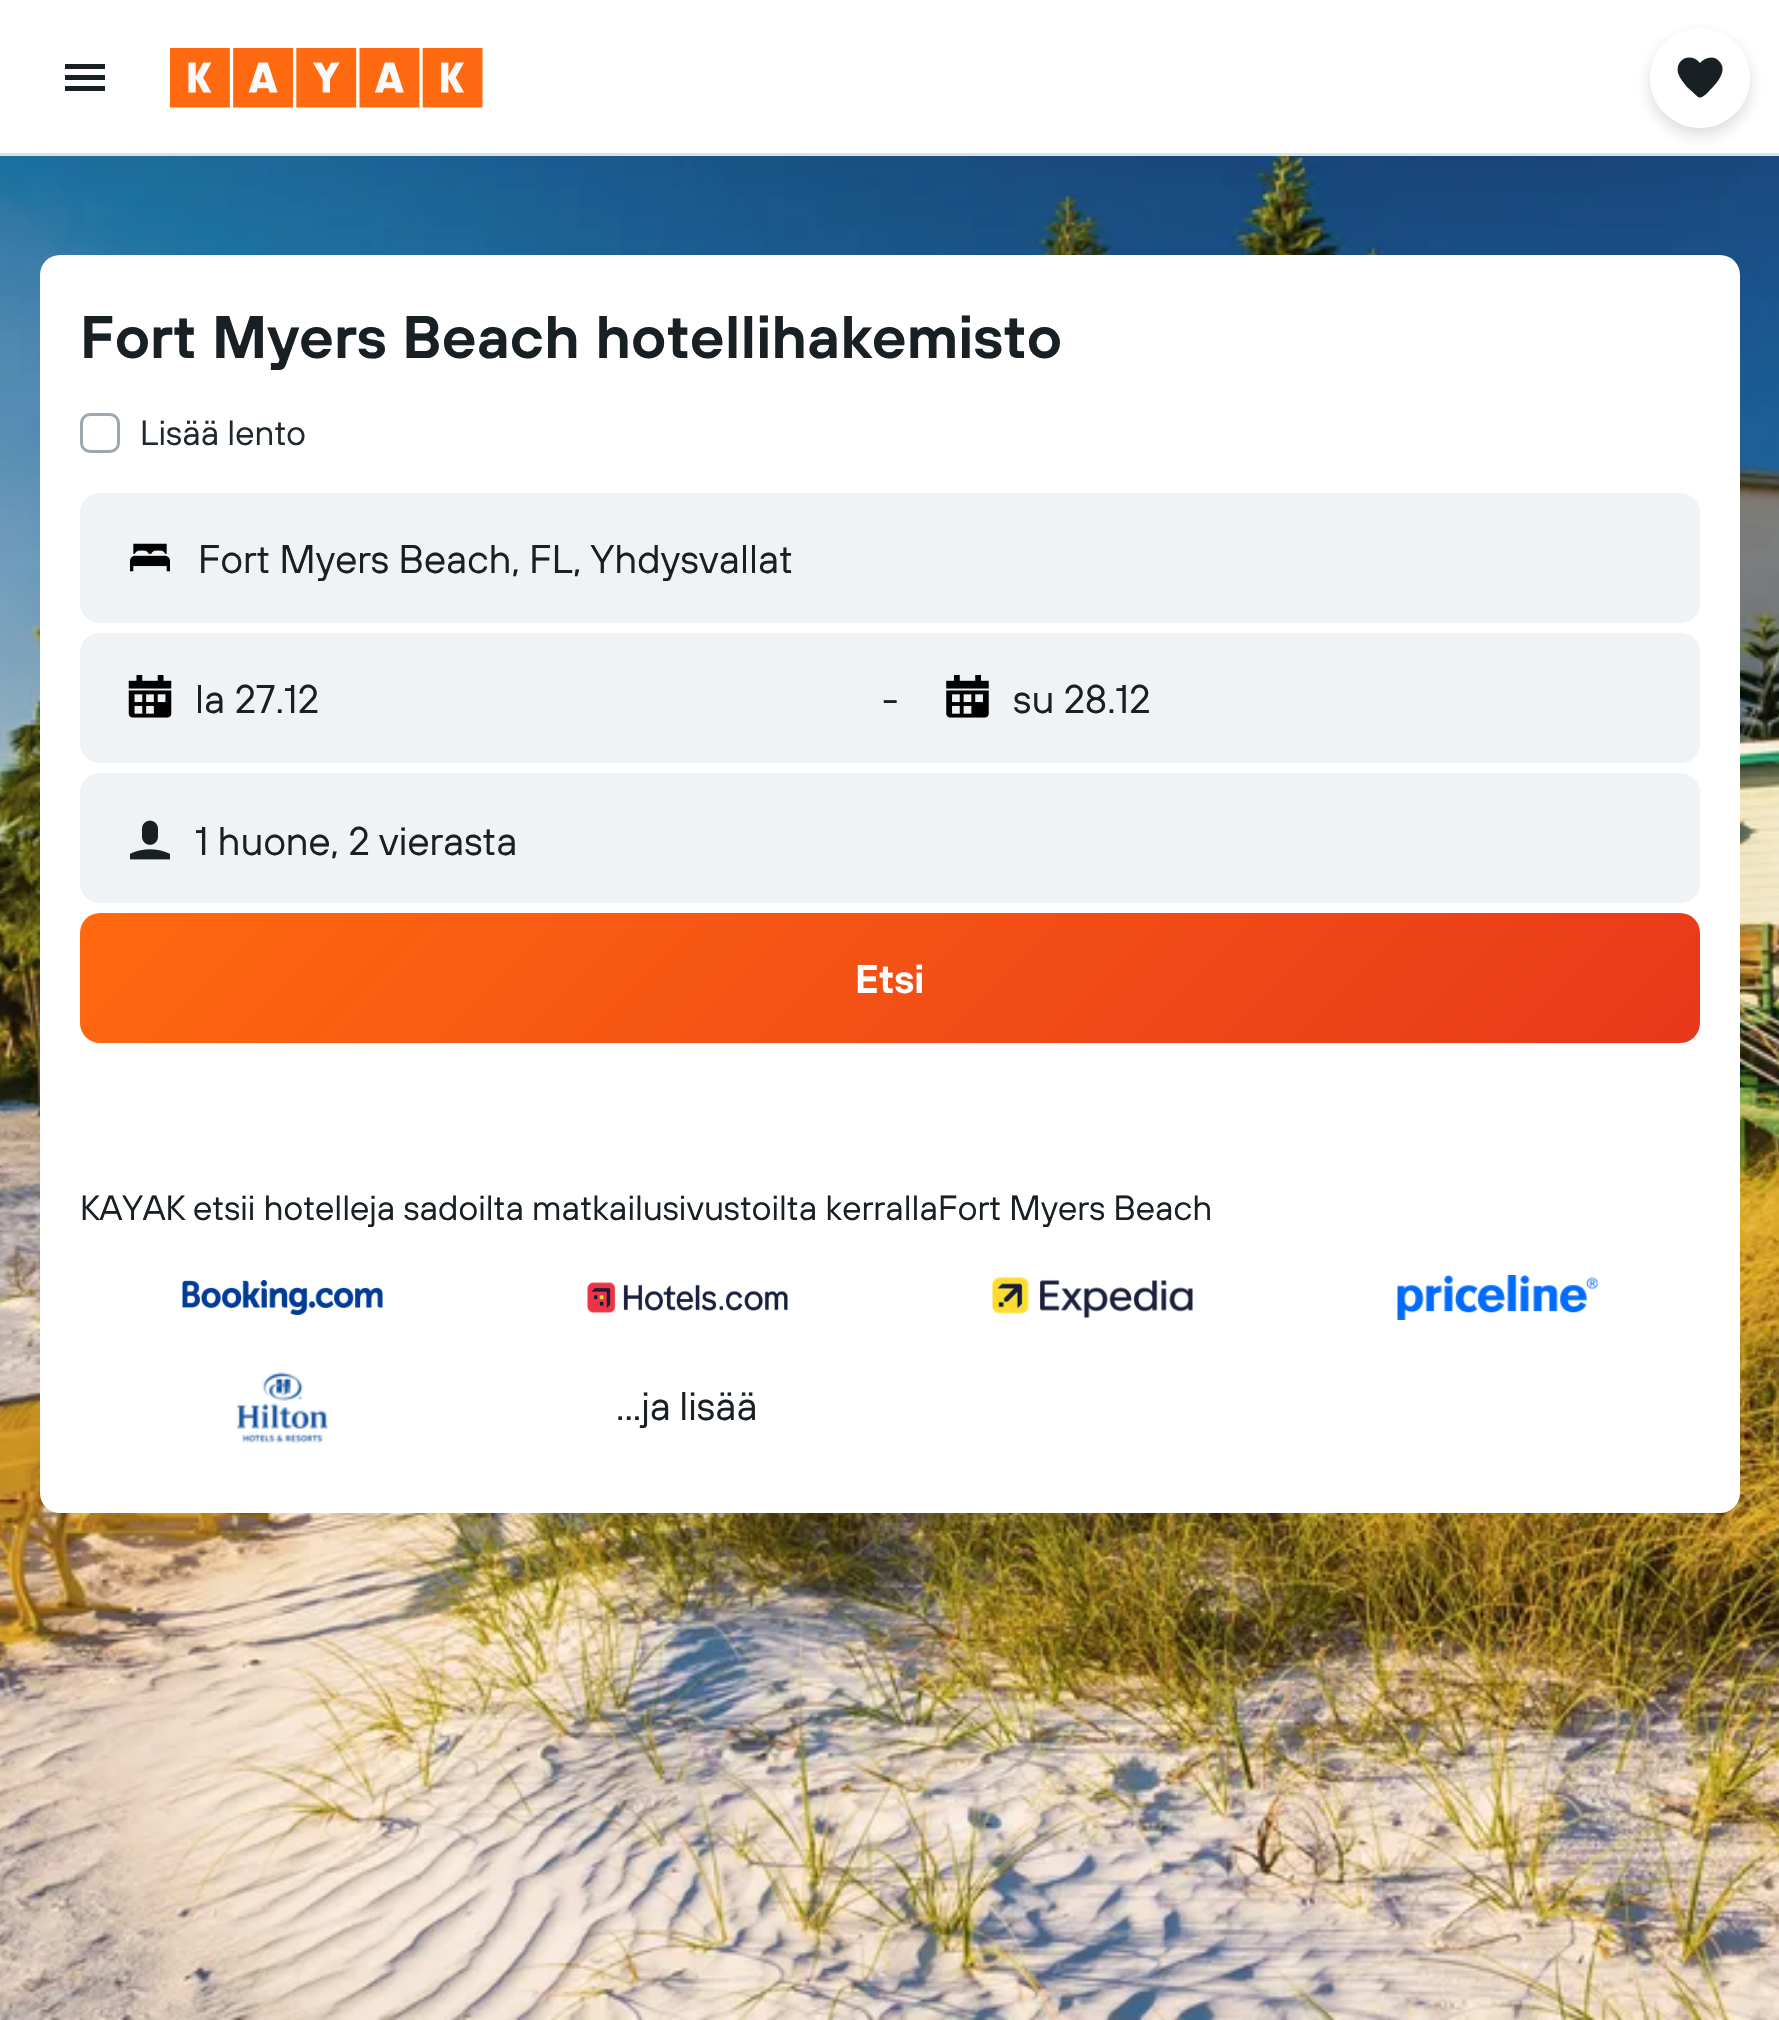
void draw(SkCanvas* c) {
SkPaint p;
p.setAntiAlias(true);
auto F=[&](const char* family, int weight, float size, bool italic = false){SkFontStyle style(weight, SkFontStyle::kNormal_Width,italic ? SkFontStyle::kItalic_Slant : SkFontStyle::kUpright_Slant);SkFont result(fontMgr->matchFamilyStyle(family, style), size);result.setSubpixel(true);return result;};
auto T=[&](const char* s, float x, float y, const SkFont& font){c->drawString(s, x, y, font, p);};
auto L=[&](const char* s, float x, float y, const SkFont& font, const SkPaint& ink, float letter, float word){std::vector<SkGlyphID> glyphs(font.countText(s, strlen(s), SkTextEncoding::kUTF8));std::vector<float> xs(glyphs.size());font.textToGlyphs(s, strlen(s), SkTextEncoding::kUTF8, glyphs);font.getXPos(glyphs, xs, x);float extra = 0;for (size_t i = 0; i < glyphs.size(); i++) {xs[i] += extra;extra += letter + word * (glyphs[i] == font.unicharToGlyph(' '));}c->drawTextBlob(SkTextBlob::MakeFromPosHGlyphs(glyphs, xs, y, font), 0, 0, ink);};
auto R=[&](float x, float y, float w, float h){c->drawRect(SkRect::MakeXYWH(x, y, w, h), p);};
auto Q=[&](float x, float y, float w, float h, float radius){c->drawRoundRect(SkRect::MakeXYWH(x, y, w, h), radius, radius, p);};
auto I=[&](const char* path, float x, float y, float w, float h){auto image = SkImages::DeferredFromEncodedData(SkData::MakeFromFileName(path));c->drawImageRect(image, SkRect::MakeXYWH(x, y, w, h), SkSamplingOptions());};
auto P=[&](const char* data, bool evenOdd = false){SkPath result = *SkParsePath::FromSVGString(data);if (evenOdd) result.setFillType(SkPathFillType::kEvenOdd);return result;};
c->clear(0xffffffff);
p.setColor(0xffd9e2e8);
R(0,153,1779,3);
p.setColor(0xff192024);
c->drawPath(P("M65 91h40v-5h-40zm0-11h40v-5h-40zm0-16v5h40v-5z"),p);
I("1.png",170,48,313,60);
I("2.png",0,156,1779,1864);
p.setColor(0x29192024);
p.setMaskFilter(SkMaskFilter::MakeBlur(kNormal_SkBlurStyle, 7.5));
c->drawRoundRect(SkRect::MakeXYWH(1650,35,100,100),50,50,p);
p.setMaskFilter(nullptr);
p.setColor(0xffffffff);
c->drawCircle(1700,78,50,p);
p.setColor(0xff192024);
c->drawPath(P("M1719 61c-5-6-14-4-19 2c-9-11-25-4-22 10c2 6 6 10 9 14l11 10c4 3 11-6 13-8c7-7 17-19 8-28z"),p);
p.setColor(0xffffffff);
Q(40,255,1700,1258,20);
auto f1 = F("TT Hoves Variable",600,60);
p.setColor(0xff192024);
T("Fort Myers Beach hotellihakemisto",80,358,f1);
p.setStroke(true);
p.setStrokeWidth(3);
p.setColor(0xff9ba8b0);
c->drawRoundRect(SkRect::MakeXYWH(81.5,414.5,37,37),8.5,8.5,p);
auto f2 = F("TT Hoves Variable",400,35);
p.setStroke(false);
p.setColor(0xff1f282d);
T("Lisää lento",140,445,f2);
p.setColor(0xfff0f3f5);
c->drawRoundRect(SkRect::MakeXYWH(81.5,494.5,1617,127),18.5,18.5,p);
p.setStroke(true);
c->drawRoundRect(SkRect::MakeXYWH(81.5,494.5,1617,127),18.5,18.5,p);
I("3.png",130,543,40,29);
auto f3 = F("TT Hoves Variable",400,40);
p.setStroke(false);
p.setColor(0xff192024);
T("Fort Myers Beach, FL, Yhdysvallat",198,573,f3);
p.setColor(0xfff0f3f5);
Q(80,633,1620,130,20);
Q(80,633,803,130,20);
I("4.png",128,675,44,43);
p.setColor(0xff192024);
T("la 27.12",195,713,f3);
T("-",882,713,f3);
p.setColor(0xfff0f3f5);
Q(898,633,802,130,20);
I("5.png",946,675,43,43);
p.setColor(0xff192024);
T("su 28.12",1013,713,f3);
p.setColor(0xfff0f3f5);
Q(80,773,1620,130,20);
I("6.png",130,820,40,40);
p.setColor(0xff192024);
T("1 huone, 2 vierasta",195,855,f3);
{
const SkColor colors[] = {0xffff690f,0xffe8381b};
const float stops[] = {0,1};
const SkPoint ends[] = {{452,540}, {1328,1415}};
p.setShader(SkGradientShader::MakeLinear(ends, colors, stops, 2, SkTileMode::kClamp));
p.setAlpha(255);
}
Q(80,913,1620,130,20);
auto f4 = F("TT Hoves Variable",600,40);
p.setShader(nullptr);
p.setColor(0xffffffff);
T("Etsi",855,993,f4);
p.setColor(0xff192024);
T("KAYAK etsii hotelleja sadoilta matkailusivustoilta kerrallaFort Myers Beach",80,1220,f2);
I("7.png",182,1280,201,35);
I("8.png",587,1282,201,31);
I("9.png",992,1277,201,41);
I("10.png",1397,1275,201,45);
I("11.png",237,1372,91,71);
L("...ja lisää",616,1420,f3,p,0,-1);
}
